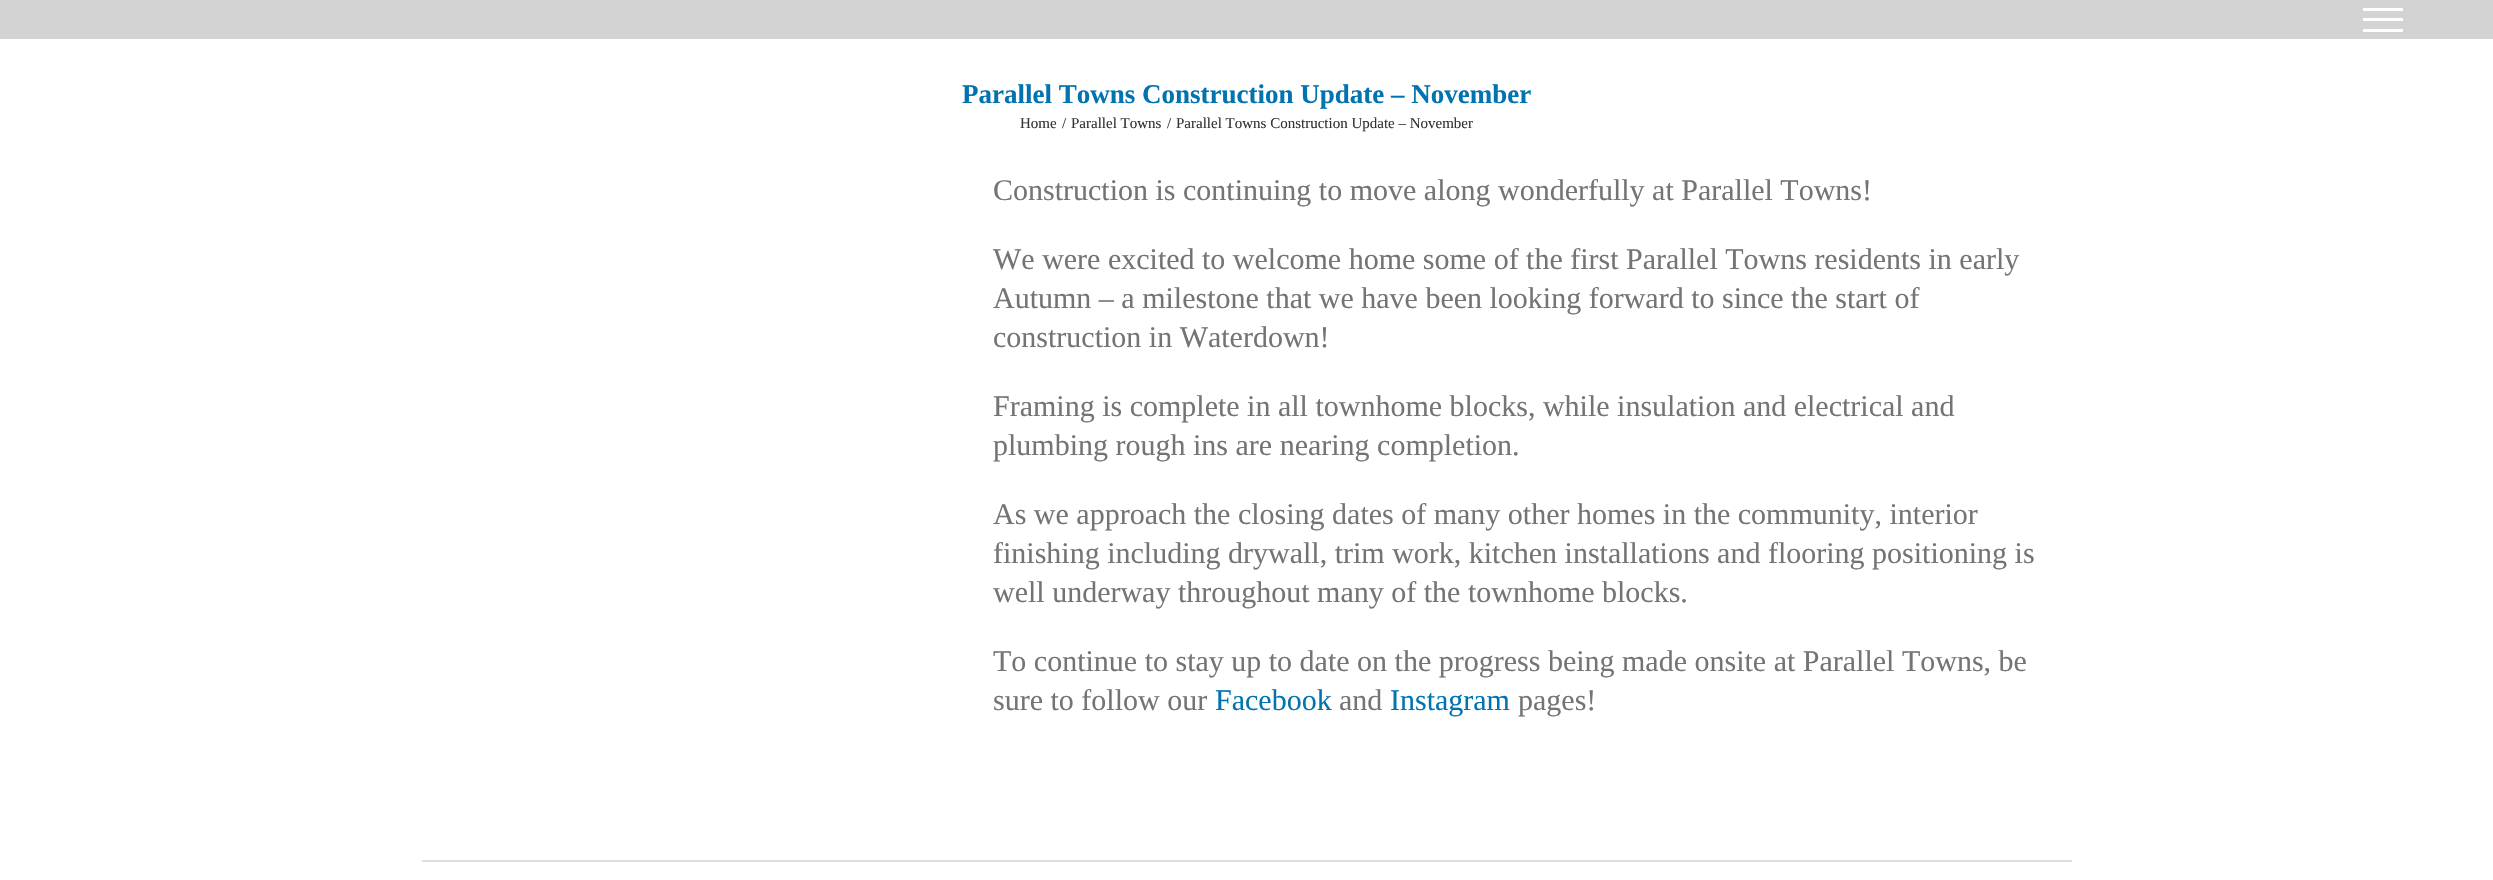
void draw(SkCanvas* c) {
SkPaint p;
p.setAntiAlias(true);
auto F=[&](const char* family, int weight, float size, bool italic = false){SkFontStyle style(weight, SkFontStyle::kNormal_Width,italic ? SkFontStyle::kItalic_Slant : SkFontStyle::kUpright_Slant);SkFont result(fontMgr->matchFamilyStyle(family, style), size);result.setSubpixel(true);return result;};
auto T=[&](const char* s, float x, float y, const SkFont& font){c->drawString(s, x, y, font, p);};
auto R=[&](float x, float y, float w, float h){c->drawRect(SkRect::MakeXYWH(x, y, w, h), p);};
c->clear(0xffffffff);
p.setColor(0xffd3d3d3);
R(0,0,2493,39);
p.setColor(0xffffffff);
R(2363,8,40,3);
R(2363,18,40,3);
R(2363,29,40,3);
auto f1 = F("Liberation Serif",700,27);
p.setColor(0xff0273b1);
T("Parallel Towns Construction Update – November",962,103,f1);
auto f2 = F("Liberation Serif",400,15);
p.setColor(0xff333333);
T("Home",1020,128,f2);
T("/",1062,128,f2);
T("Parallel Towns",1071,128,f2);
T("/",1167,128,f2);
T("Parallel Towns Construction Update – November",1176,128,f2);
auto f3 = F("Liberation Serif",400,30);
p.setColor(0xff747474);
T("Construction is continuing to move along wonderfully at Parallel Towns!",993,200,f3);
T("We were excited to welcome home some of the first Parallel Towns residents in early",993,269,f3);
T("Autumn – a milestone that we have been looking forward to since the start of",993,308,f3);
T("construction in Waterdown!",993,347,f3);
T("Framing is complete in all townhome blocks, while insulation and electrical and",993,416,f3);
T("plumbing rough ins are nearing completion.",993,455,f3);
T("As we approach the closing dates of many other homes in the community, interior",993,524,f3);
T("finishing including drywall, trim work, kitchen installations and flooring positioning is",993,563,f3);
T("well underway throughout many of the townhome blocks.",993,602,f3);
T("To continue to stay up to date on the progress being made onsite at Parallel Towns, be",993,671,f3);
T("sure to follow our",993,710,f3);
p.setColor(0xff0273b1);
T("Facebook",1215,710,f3);
p.setColor(0xff747474);
T("and",1339,710,f3);
p.setColor(0xff0273b1);
T("Instagram",1390,710,f3);
p.setColor(0xff747474);
T("pages!",1518,710,f3);
p.setColor(0xffe0dede);
R(422,860,1650,2);
}
